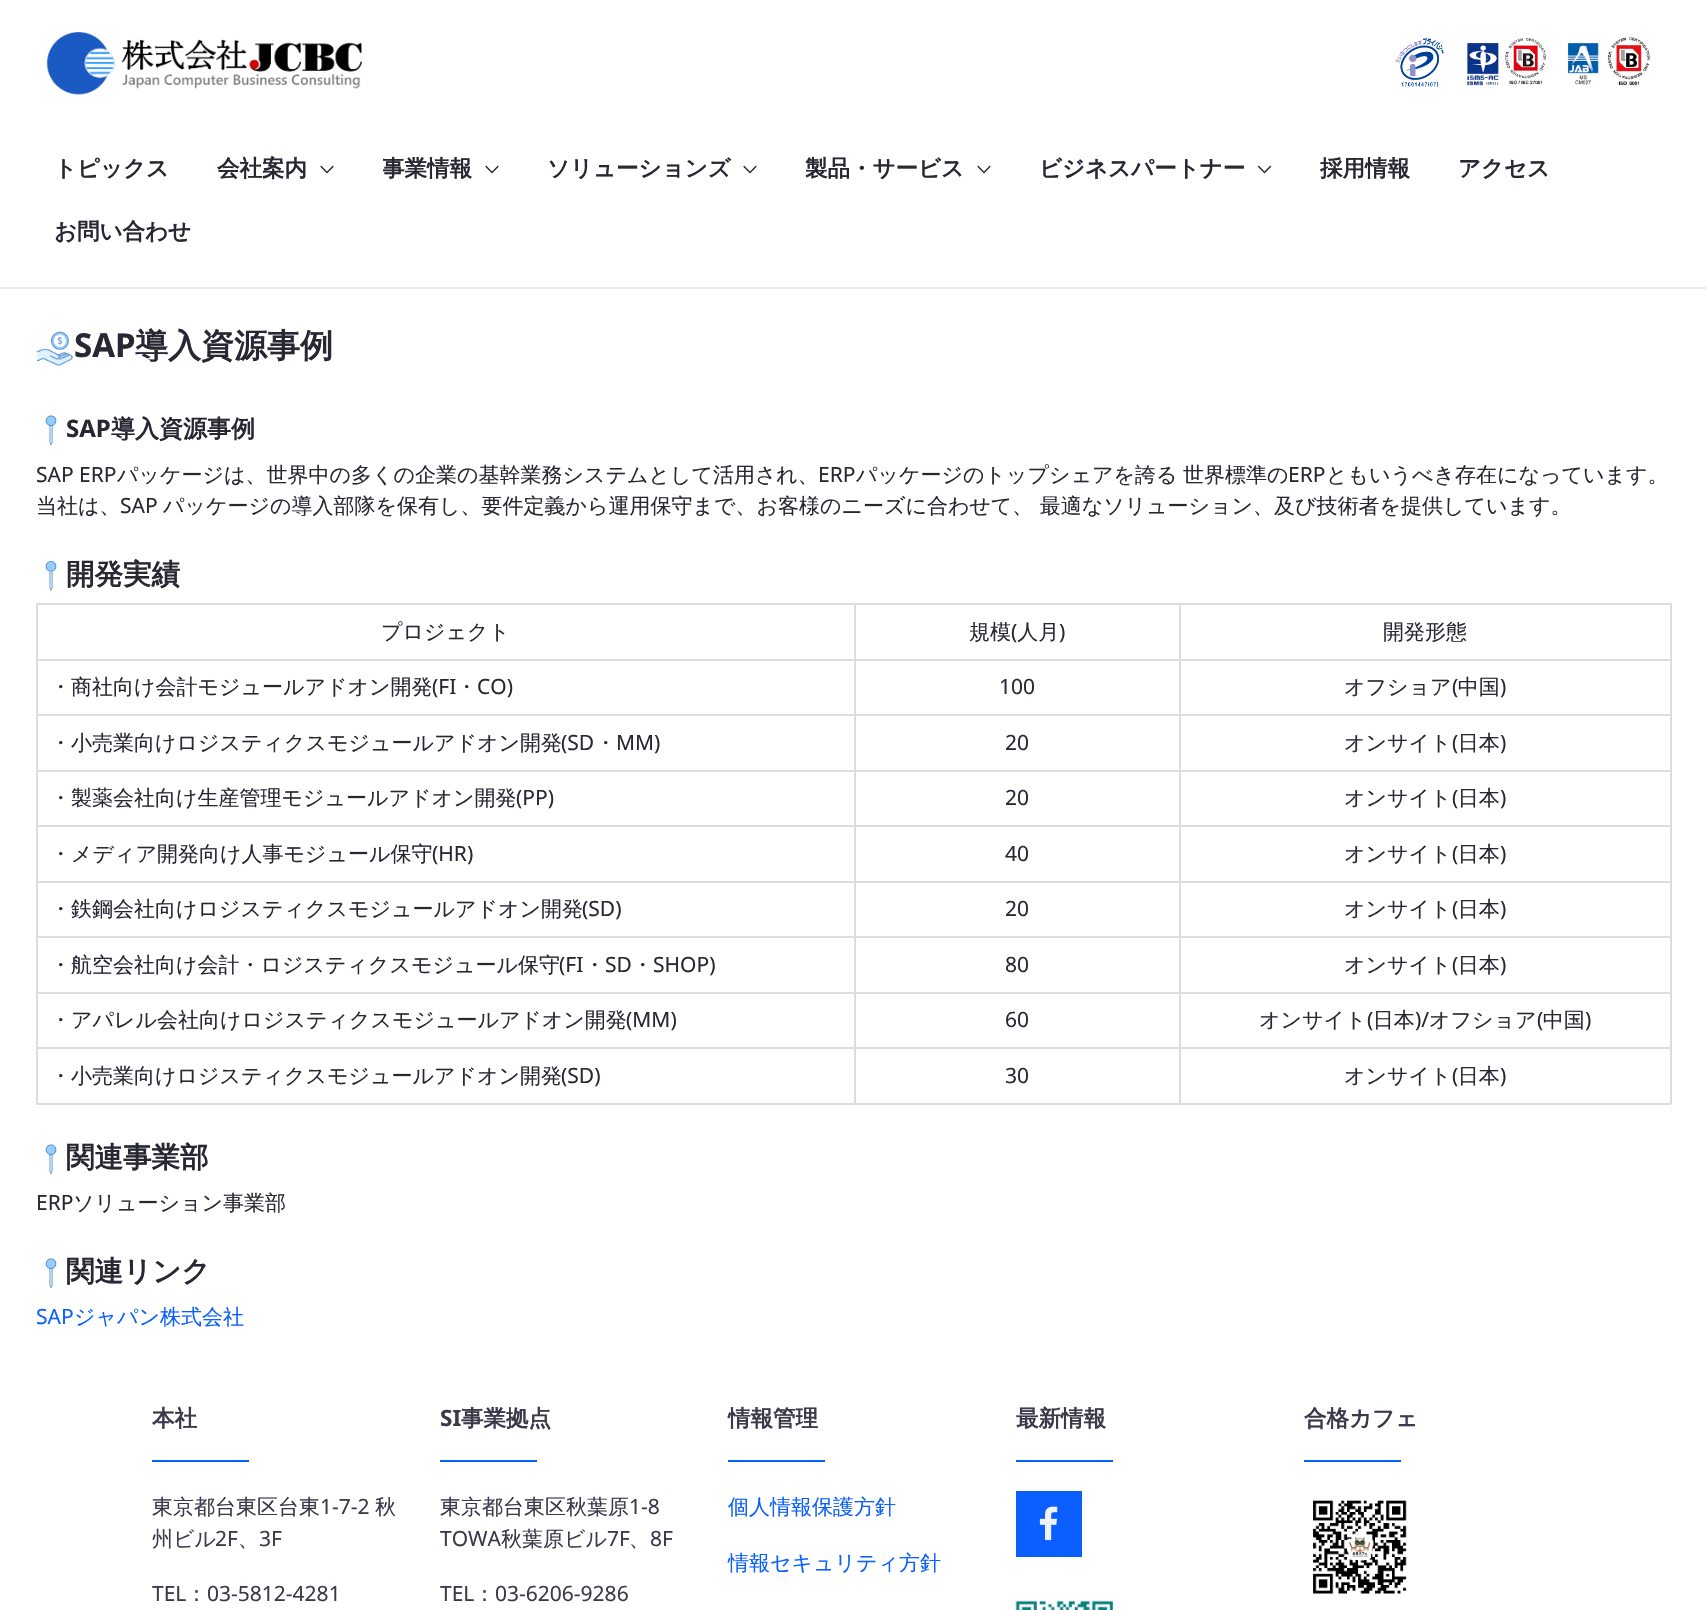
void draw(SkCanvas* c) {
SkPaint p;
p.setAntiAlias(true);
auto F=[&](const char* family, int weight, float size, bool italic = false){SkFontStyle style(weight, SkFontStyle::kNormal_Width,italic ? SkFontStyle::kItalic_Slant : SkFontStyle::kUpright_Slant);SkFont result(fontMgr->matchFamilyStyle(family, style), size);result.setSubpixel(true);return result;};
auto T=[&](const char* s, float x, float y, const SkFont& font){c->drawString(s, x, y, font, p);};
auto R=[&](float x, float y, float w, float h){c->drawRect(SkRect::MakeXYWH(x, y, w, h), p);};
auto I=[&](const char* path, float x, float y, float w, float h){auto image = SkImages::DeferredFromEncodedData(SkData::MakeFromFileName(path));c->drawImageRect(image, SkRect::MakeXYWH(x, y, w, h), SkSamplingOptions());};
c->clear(0xffffffff);
I("1.png",46,32,316,63);
I("2.png",1395,37,49,50);
I("3.png",1467,37,79,49);
I("4.png",1567,37,84,49);
p.setColor(0xffe7e7ed);
R(0,287,1706,2);
auto f1 = F("WenQuanYi Zen Hei",700,22.5);
p.setColor(0xff272833);
T("トピックス",54,176,f1);
T("会社案内",217,176,f1);
I("5.png",320,165,14,9);
c->save();
c->clipRect(SkRect::MakeXYWH(383,150,117,35));
T("事業情報",382,176,f1);
c->restore();
I("5.png",485,165,14,9);
T("ソリューションズ",547,176,f1);
I("5.png",743,165,14,9);
T("製品・サービス",805,176,f1);
I("5.png",977,165,14,9);
T("ビジネスパートナー",1039,176,f1);
I("6.png",1257,165,15,9);
T("採用情報",1320,176,f1);
T("アクセス",1458,176,f1);
T("お問い合わせ",54,239,f1);
I("7.png",36,331,37,35);
auto f2 = F("Noto Sans",700,33);
T("SAP",74,357,f2);
auto f3 = F("WenQuanYi Zen Hei",700,33);
T("導入資源事例",135,357,f3);
I("8.png",45,415,12,31);
auto f4 = F("Noto Sans",700,24);
T("SAP",66,437,f4);
auto f5 = F("WenQuanYi Zen Hei",700,24);
T("導入資源事例",111,437,f5);
auto f6 = F("Noto Sans",400,21);
T("SAP ERP",36,482,f6);
auto f7 = F("WenQuanYi Zen Hei",500,21);
T("パッケージは、世界中の多くの企業の基幹業務システムとして活用され、",117,482,f7);
T("ERP",818,482,f6);
T("パッケージのトップシェアを誇る",856,482,f7);
T("世界標準の",1183,482,f7);
T("ERP",1288,482,f6);
T("ともいうべき存在になっています。",1326,482,f7);
T("当社は、",36,513,f7);
T("SAP",120,513,f6);
T("パッケージの導入部隊を保有し、要件定義から運用保守まで、お客様のニーズに合わせて、 最適なソリューション、及び技術者を提供しています。",163,513,f7);
I("9.png",45,561,12,30);
auto f8 = F("WenQuanYi Zen Hei",700,28.5);
T("開発実績",66,584,f8);
p.setColor(0xffdddddd);
R(1179,603,492,2);
R(1670,603,2,57);
R(1179,659,492,2);
R(1179,603,2,57);
R(854,603,327,2);
R(854,659,327,2);
R(854,603,2,57);
R(36,603,819,2);
R(36,659,819,2);
R(36,603,2,57);
p.setColor(0xff272833);
T("プロジェクト",381,639,f7);
T("規模 人月",969,639,f7);
T("(",1011,639,f6);
T(")",1059,639,f6);
T("開発形態",1383,639,f7);
p.setColor(0xffdddddd);
R(1670,659,2,57);
R(1179,714,492,2);
R(1179,659,2,57);
R(854,714,327,2);
R(854,659,2,57);
R(36,714,819,2);
R(36,659,2,57);
p.setColor(0xff272833);
T("・商社向け会計モジュールアドオン開発",50,694,f7);
T("(FI",432,694,f6);
T("・",456,694,f7);
T("CO)",477,694,f6);
T("100",999,694,f6);
T("オフショア 中国",1344,694,f7);
T("(",1452,694,f6);
T(")",1500,694,f6);
p.setColor(0xffdddddd);
R(1670,714,2,57);
R(1179,770,492,2);
R(1179,714,2,57);
R(854,770,327,2);
R(854,714,2,57);
R(36,770,819,2);
R(36,714,2,57);
p.setColor(0xff272833);
T("・小売業向けロジスティクスモジュールアドオン開発",50,750,f7);
T("(SD",561,750,f6);
T("・",595,750,f7);
T("MM)",616,750,f6);
T("20",1005,750,f6);
T("オンサイト 日本",1344,750,f7);
T("(",1452,750,f6);
T(")",1500,750,f6);
p.setColor(0xffdddddd);
R(1670,770,2,57);
R(1179,825,492,2);
R(1179,770,2,57);
R(854,825,327,2);
R(854,770,2,57);
R(36,825,819,2);
R(36,770,2,57);
p.setColor(0xff272833);
T("・製薬会社向け生産管理モジュールアドオン開発",50,805,f7);
T("(PP)",516,805,f6);
T("20",1005,805,f6);
T("オンサイト 日本",1344,805,f7);
T("(",1452,805,f6);
T(")",1500,805,f6);
p.setColor(0xffdddddd);
R(1670,825,2,57);
R(1179,881,492,2);
R(1179,825,2,57);
R(854,881,327,2);
R(854,825,2,57);
R(36,881,819,2);
R(36,825,2,57);
p.setColor(0xff272833);
T("・メディア開発向け人事モジュール保守",50,861,f7);
T("(HR)",432,861,f6);
T("40",1005,861,f6);
T("オンサイト 日本",1344,861,f7);
T("(",1452,861,f6);
T(")",1500,861,f6);
p.setColor(0xffdddddd);
R(1670,881,2,57);
R(1179,936,492,2);
R(1179,881,2,57);
R(854,936,327,2);
R(854,881,2,57);
R(36,936,819,2);
R(36,881,2,57);
p.setColor(0xff272833);
T("・鉄鋼会社向けロジスティクスモジュールアドオン開発",50,916,f7);
T("(SD)",582,916,f6);
T("20",1005,916,f6);
T("オンサイト 日本",1344,916,f7);
T("(",1452,916,f6);
T(")",1500,916,f6);
p.setColor(0xffdddddd);
R(1670,936,2,57);
R(1179,992,492,2);
R(1179,936,2,57);
R(854,992,327,2);
R(854,936,2,57);
R(36,992,819,2);
R(36,936,2,57);
p.setColor(0xff272833);
T("・航空会社向け会計・ロジスティクスモジュール保守",50,972,f7);
T("(FI",559,972,f6);
T("・",584,972,f7);
T("SD",605,972,f6);
T("・",632,972,f7);
T("SHOP)",653,972,f6);
T("80",1005,972,f6);
T("オンサイト 日本",1344,972,f7);
T("(",1452,972,f6);
T(")",1500,972,f6);
p.setColor(0xffdddddd);
R(1670,992,2,57);
R(1179,1047,492,2);
R(1179,992,2,57);
R(854,1047,327,2);
R(854,992,2,57);
R(36,1047,819,2);
R(36,992,2,57);
p.setColor(0xff272833);
T("・アパレル会社向けロジスティクスモジュールアドオン開発",50,1027,f7);
T("(MM)",626,1027,f6);
T("60",1005,1027,f6);
T("オンサイト 日本",1259,1027,f7);
T("オフショア 中国",1429,1027,f7);
T("(",1367,1027,f6);
T(")/",1415,1027,f6);
T("(",1537,1027,f6);
T(")",1585,1027,f6);
p.setColor(0xffdddddd);
R(1670,1047,2,57);
R(1179,1103,492,2);
R(1179,1047,2,57);
R(854,1103,327,2);
R(854,1047,2,57);
R(36,1103,819,2);
R(36,1047,2,57);
p.setColor(0xff272833);
T("・小売業向けロジスティクスモジュールアドオン開発",50,1083,f7);
T("(SD)",561,1083,f6);
T("30",1005,1083,f6);
T("オンサイト 日本",1344,1083,f7);
T("(",1452,1083,f6);
T(")",1500,1083,f6);
I("8.png",45,1144,12,31);
T("関連事業部",66,1167,f8);
T("ERP",36,1210,f6);
T("ソリューション事業部",73,1210,f7);
I("8.png",45,1258,12,31);
T("関連リンク",66,1281,f8);
p.setColor(0xff0b5fff);
T("SAP",36,1324,f6);
T("ジャパン株式会社",74,1324,f7);
p.setColor(0xff393a4a);
T("本社",152,1426,f1);
p.setColor(0xff0b5fff);
R(152,1460,97,2);
p.setColor(0xff393a4a);
T("東京都台東区台東",152,1514,f7);
T("1-7-2",320,1514,f6);
T("秋",375,1514,f7);
T("州ビル",152,1546,f7);
T("2F",215,1546,f6);
T("、",238,1546,f7);
T("3F",259,1546,f6);
T("TEL",152,1601,f6);
T("：",186,1601,f7);
T("03-5812-4281",207,1601,f6);
auto f9 = F("Noto Sans",700,22.5);
T("SI",440,1426,f9);
T("事業拠点",461,1426,f1);
p.setColor(0xff0b5fff);
R(440,1460,97,2);
p.setColor(0xff393a4a);
T("東京都台東区秋葉原",440,1514,f7);
T("1-8",629,1514,f6);
T("TOWA",440,1546,f6);
T("秋葉原ビル",501,1546,f7);
T("7F",607,1546,f6);
T("8F",650,1546,f6);
T("、",629,1546,f7);
T("TEL",440,1601,f6);
T("：",474,1601,f7);
T("03-6206-9286",495,1601,f6);
T("情報管理",728,1426,f1);
p.setColor(0xff0b5fff);
R(728,1460,97,2);
T("個人情報保護方針",728,1514,f7);
T("情報セキュリティ方針",728,1570,f7);
p.setColor(0xff393a4a);
T("最新情報",1016,1426,f1);
p.setColor(0xff0b5fff);
R(1016,1460,97,2);
R(1016,1491,66,66);
I("10.png",1039,1506,19,35);
I("11.png",1015,1600,98,10);
p.setColor(0xff393a4a);
T("合格カフェ",1304,1426,f1);
p.setColor(0xff0b5fff);
R(1304,1460,97,2);
I("12.png",1313,1500,94,94);
}
